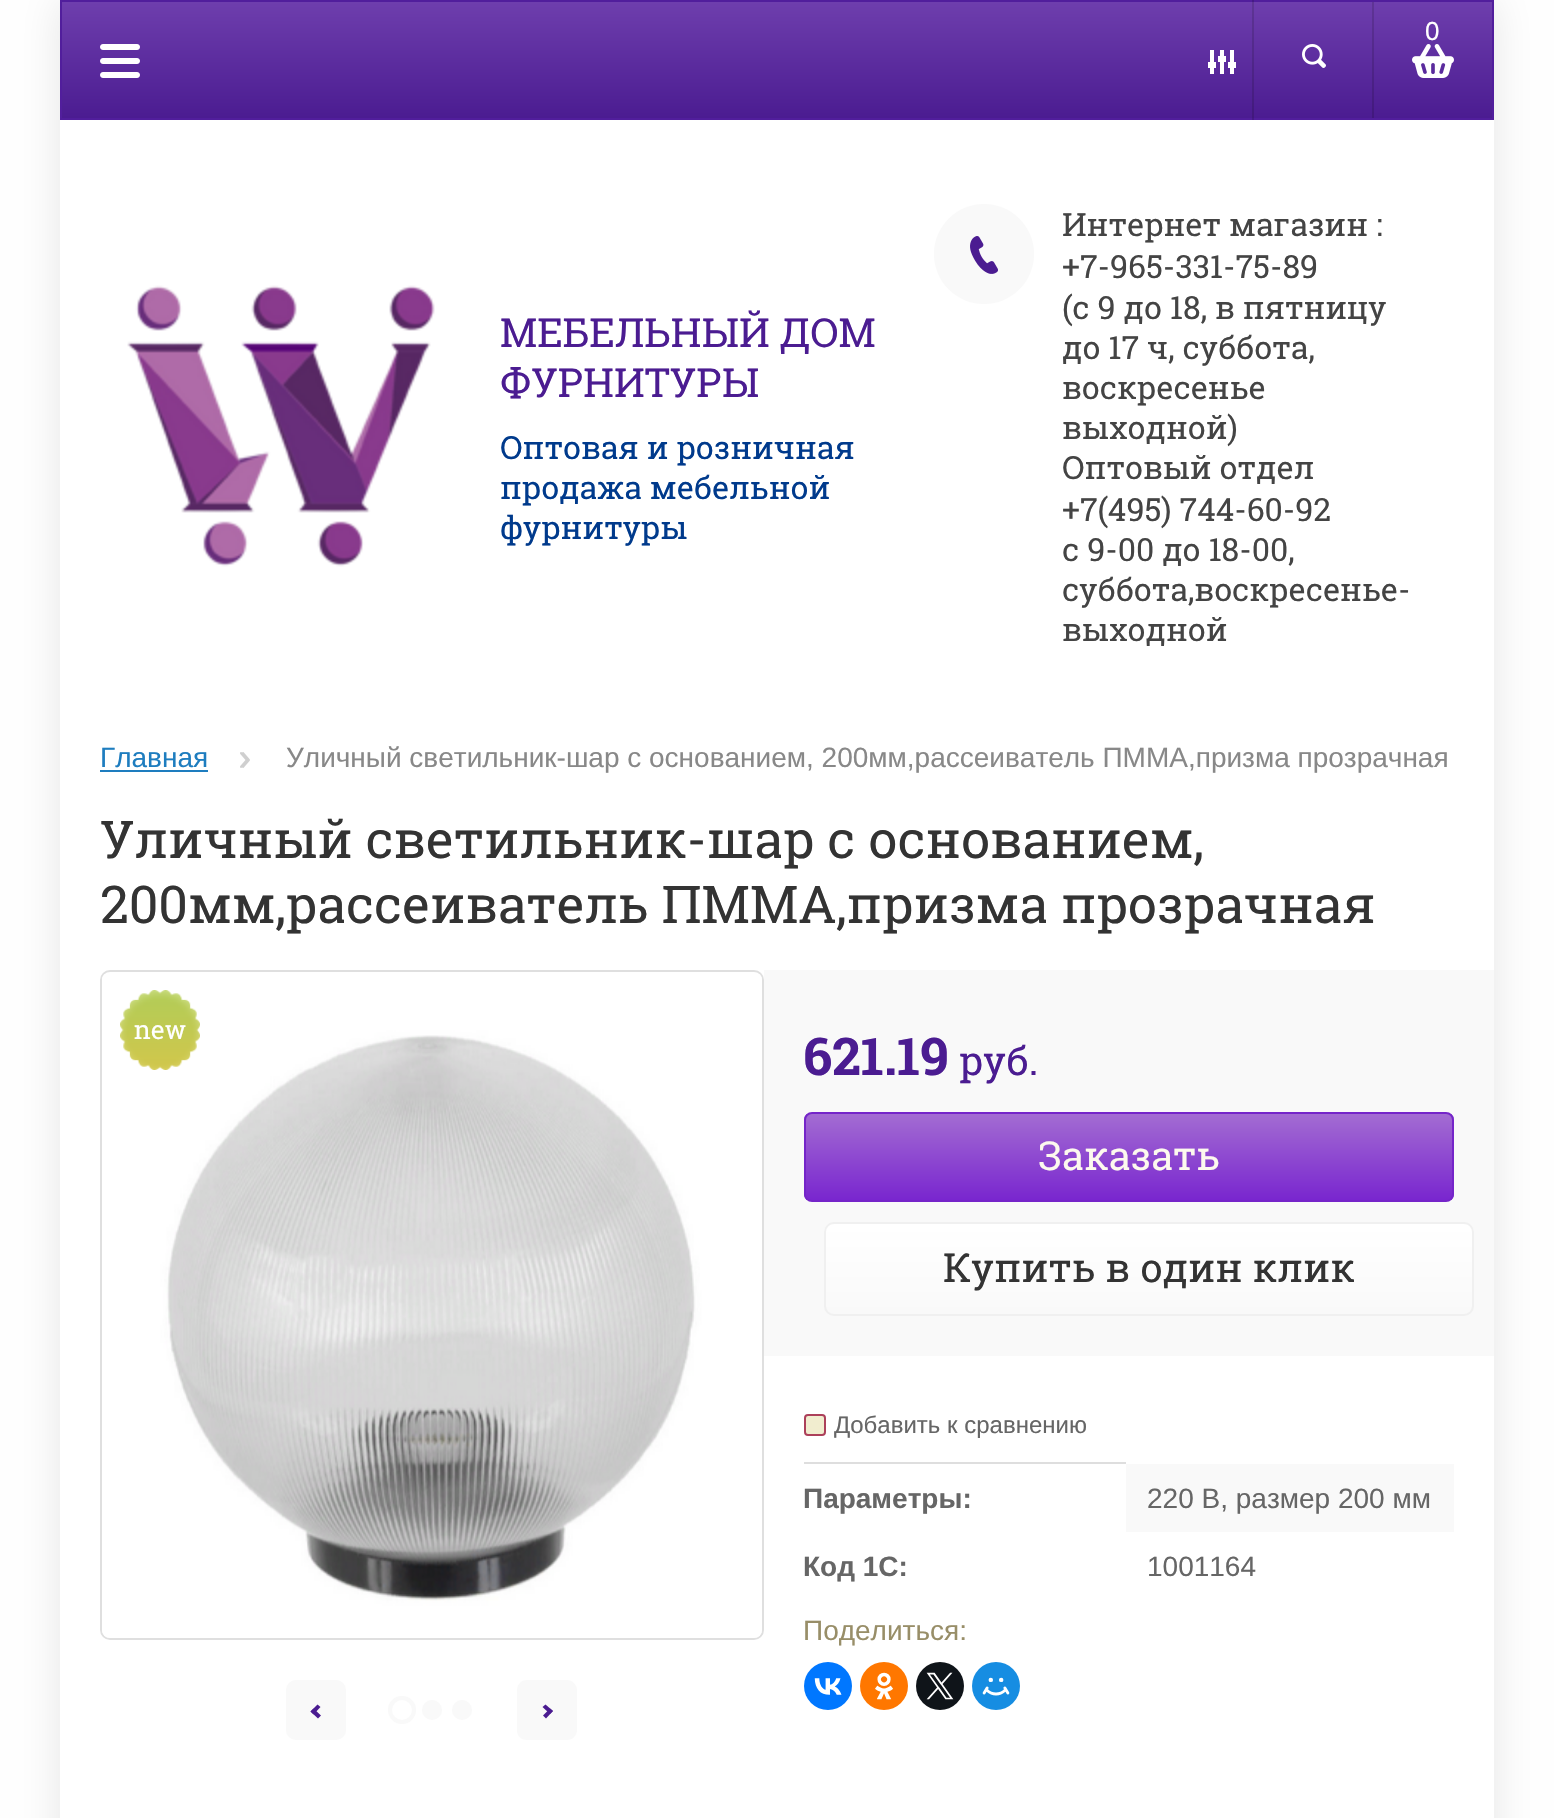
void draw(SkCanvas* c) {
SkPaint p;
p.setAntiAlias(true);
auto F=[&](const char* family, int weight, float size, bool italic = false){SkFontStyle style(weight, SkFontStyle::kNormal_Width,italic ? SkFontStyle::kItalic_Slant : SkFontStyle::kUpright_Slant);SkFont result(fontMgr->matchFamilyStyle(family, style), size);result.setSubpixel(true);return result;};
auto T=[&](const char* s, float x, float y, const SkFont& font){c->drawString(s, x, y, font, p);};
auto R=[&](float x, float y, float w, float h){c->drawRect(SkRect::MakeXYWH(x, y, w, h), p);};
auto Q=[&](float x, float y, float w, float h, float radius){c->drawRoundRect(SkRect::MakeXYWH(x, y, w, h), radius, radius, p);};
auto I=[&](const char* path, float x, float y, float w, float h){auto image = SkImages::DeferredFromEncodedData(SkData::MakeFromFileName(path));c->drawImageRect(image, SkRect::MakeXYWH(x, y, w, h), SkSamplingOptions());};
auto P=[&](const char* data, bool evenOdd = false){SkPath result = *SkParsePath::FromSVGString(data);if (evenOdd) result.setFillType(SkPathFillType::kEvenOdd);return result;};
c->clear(0xffffffff);
c->save();
c->clipPath(P("M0 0h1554v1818h-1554zm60 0h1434v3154h-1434z",true),true);
p.setColor(0x1a000000);
p.setMaskFilter(SkMaskFilter::MakeBlur(kNormal_SkBlurStyle, 20));
c->drawRect(SkRect::MakeXYWH(60,0,1434,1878),p);
p.setMaskFilter(nullptr);
c->restore();
{
const SkColor colors[] = {0xff6e3ead,0xff4b1c91};
const float stops[] = {0,1};
const SkPoint ends[] = {{777,2}, {777,118}};
p.setShader(SkGradientShader::MakeLinear(ends, colors, stops, 2, SkTileMode::kClamp));
p.setAlpha(255);
}
R(62,2,1430,116);
{
const SkColor colors[] = {0xff5f3595,0xff41187d};
const float stops[] = {0,1};
const SkPoint ends[] = {{777,2}, {777,118}};
p.setShader(SkGradientShader::MakeLinear(ends, colors, stops, 2, SkTileMode::kClamp));
p.setAlpha(255);
}
R(1372,2,2,116);
p.setStroke(true);
p.setStrokeWidth(2);
p.setShader(nullptr);
p.setColor(0xff511e9c);
c->drawRect(SkRect::MakeXYWH(61,1,1432,118),p);
I("1.png",1302,44,24,24);
p.setStroke(false);
p.setColor(0x24000000);
R(1252,0,2,120);
I("2.png",1412,44,42,34);
auto f1 = F("Liberation Sans",400,26);
p.setColor(0xffffffff);
T("0",1425,40,f1);
I("3.png",100,44,40,34);
R(1210,50,4,24);
R(1208,62,8,6);
R(1220,50,4,24);
R(1218,56,8,6);
R(1230,50,4,24);
R(1228,62,8,6);
I("4.png",127,285,308,282);
auto f2 = F("Roboto Slab",400,40);
p.setColor(0xff4b1c91);
T("МЕБЕЛЬНЫЙ ДОМ",500,347,f2);
T("ФУРНИТУРЫ",500,397,f2);
auto f3 = F("Roboto Slab",400,32);
p.setColor(0xff003a8c);
T("Оптовая и розничная",500,459,f3);
T("продажа мебельной",500,499,f3);
T("фурнитуры",500,539,f3);
p.setColor(0xfff9f9f9);
c->drawCircle(984,254,50,p);
I("5.png",970,236,28,38);
p.setColor(0xff444444);
T("Интернет магазин :",1062,236,f3);
T("+7-965-331-75-89",1062,278,f3);
T("(с 9 до 18, в пятницу",1062,319,f3);
T("до 17 ч, суббота,",1062,359,f3);
T("воскресенье",1062,399,f3);
T("выходной)",1062,439,f3);
T("Оптовый отдел",1062,479,f3);
T("+7(495) 744-60-92",1062,521,f3);
T("с 9-00 до 18-00,",1062,561,f3);
T("суббота,воскресенье-",1062,601,f3);
T("выходной",1062,641,f3);
auto f4 = F("Liberation Sans",400,28);
p.setColor(0xff1e7dbf);
T("Главная",100,767,f4);
R(100,770,108,2);
I("6.png",240,752,10,16);
p.setColor(0xff888888);
T("Уличный светильник-шар с основанием, 200мм,рассеиватель ПММА,призма прозрачная",286,767,f4);
auto f5 = F("Roboto Slab",400,52);
p.setColor(0xff333333);
T("Уличный светильник-шар с основанием,",100,858,f5);
T("200мм,рассеиватель ПММА,призма прозрачная",100,923,f5);
p.setStroke(true);
p.setColor(0xffdfdfdf);
c->drawRoundRect(SkRect::MakeXYWH(101,971,662,668),9,9,p);
I("7.png",102,974,660,664);
p.setStroke(false);
p.setColor(0xfff9f9f9);
Q(286,1680,60,60,10);
p.setColor(0xff4b1c91);
c->drawPath(P("M321 1715.5l-3 3l-7.5-7l3-3z"),p);
c->drawPath(P("M320.5 1707l-7 7.5l-3-3l7-7z"),p);
p.setColor(0xfff9f9f9);
c->drawPath(P("M567 1740h-40c-6 0-10-4-10-10v-40c0-5 4-10 10-10h40c5 0 10 5 10 10v40c0 6-5 10-10 10z"),p);
p.setColor(0xff4b1c91);
c->drawPath(P("M542.5 1707l3-2.5l7.5 6.5l-3 3z"),p);
c->drawPath(P("M543 1715.5l7-7l3 2.5l-7 7.5z"),p);
p.setStroke(true);
p.setStrokeWidth(4);
p.setColor(0xfff9f9f9);
c->drawCircle(402,1710,12,p);
p.setStroke(false);
c->drawCircle(432,1710,10,p);
c->drawCircle(462,1710,10,p);
I("8.png",120,990,80,80);
auto f6 = F("Roboto Slab",400,26);
p.setColor(0xffffffff);
T("new",134,1039,f6);
p.setColor(0xfff9f9f9);
R(764,970,730,386);
auto f7 = F("Roboto Slab",700,52);
p.setColor(0xff4b1c91);
T("621.19",803,1075,f7);
T("руб.",959,1075,f2);
c->save();
c->clipPath(P("M812 1112h634c4.5 0 8 3.5 8 8v74c0 4.5-3.5 8-8 8h-634c-4.5 0-8-3.5-8-8v-74c0-4.5 3.5-8 8-8z"),true);
{
const SkColor colors[] = {0xffa36cd2,0xff7926cf};
const float stops[] = {0,1};
const SkPoint ends[] = {{1129,1114}, {1129,1200}};
p.setShader(SkGradientShader::MakeLinear(ends, colors, stops, 2, SkTileMode::kClamp));
p.setAlpha(255);
}
R(804,1114,650,86);
c->restore();
p.setStroke(true);
p.setStrokeWidth(2);
p.setShader(nullptr);
p.setColor(0xff7525c9);
c->drawRoundRect(SkRect::MakeXYWH(805,1113,648,88),7,7,p);
p.setStroke(false);
p.setColor(0xfffdf9ee);
T("Заказать",1038,1170,f2);
c->save();
c->clipPath(P("M834 1222h630c5.5 0 10 4.5 10 10v74c0 5.5-4.5 10-10 10h-630c-5.5 0-10-4.5-10-10v-74c0-5.5 4.5-10 10-10z"),true);
{
const SkColor colors[] = {0xffffffff,0xfff9f9f9};
const float stops[] = {0,1};
const SkPoint ends[] = {{1149,1224}, {1149,1314}};
p.setShader(SkGradientShader::MakeLinear(ends, colors, stops, 2, SkTileMode::kClamp));
p.setAlpha(255);
}
R(824,1224,650,90);
c->restore();
p.setStroke(true);
p.setShader(nullptr);
p.setColor(0xfff0f0f0);
c->drawRoundRect(SkRect::MakeXYWH(825,1223,648,92),9,9,p);
p.setStroke(false);
p.setColor(0xff333333);
T("Купить в один клик",943,1282,f2);
p.setColor(0xffdedede);
R(804,1462,322,2);
p.setColor(0xfff1edcf);
c->drawRoundRect(SkRect::MakeXYWH(805,1415,20,20),3,3,p);
p.setStroke(true);
p.setColor(0xffac405a);
c->drawRoundRect(SkRect::MakeXYWH(805,1415,20,20),3,3,p);
auto f8 = F("Liberation Sans",400,24);
p.setStroke(false);
p.setColor(0xff666666);
T("Добавить к сравнению",834,1433,f8);
auto f9 = F("Liberation Sans",700,28);
T("Параметры:",803,1508,f9);
p.setColor(0xfff9f9f9);
R(1126,1464,328,68);
p.setColor(0xff666666);
T("220 В, размер 200 мм",1147,1508,f4);
T("Код 1С:",803,1576,f9);
T("1001164",1147,1576,f4);
p.setColor(0xff988e68);
T("Поделиться:",803,1640,f4);
p.setColor(0xff0077ff);
c->drawCircle(828,1686,24,p);
I("9.png",814,1678,28,17);
p.setColor(0xffff7700);
c->drawCircle(884,1686,24,p);
I("10.png",875,1672,18,28);
p.setColor(0xff0f1419);
c->drawCircle(940,1686,24,p);
I("11.png",926,1672,28,28);
p.setColor(0xff168de2);
c->drawCircle(996,1686,24,p);
I("12.png",982,1677,28,19);
}
